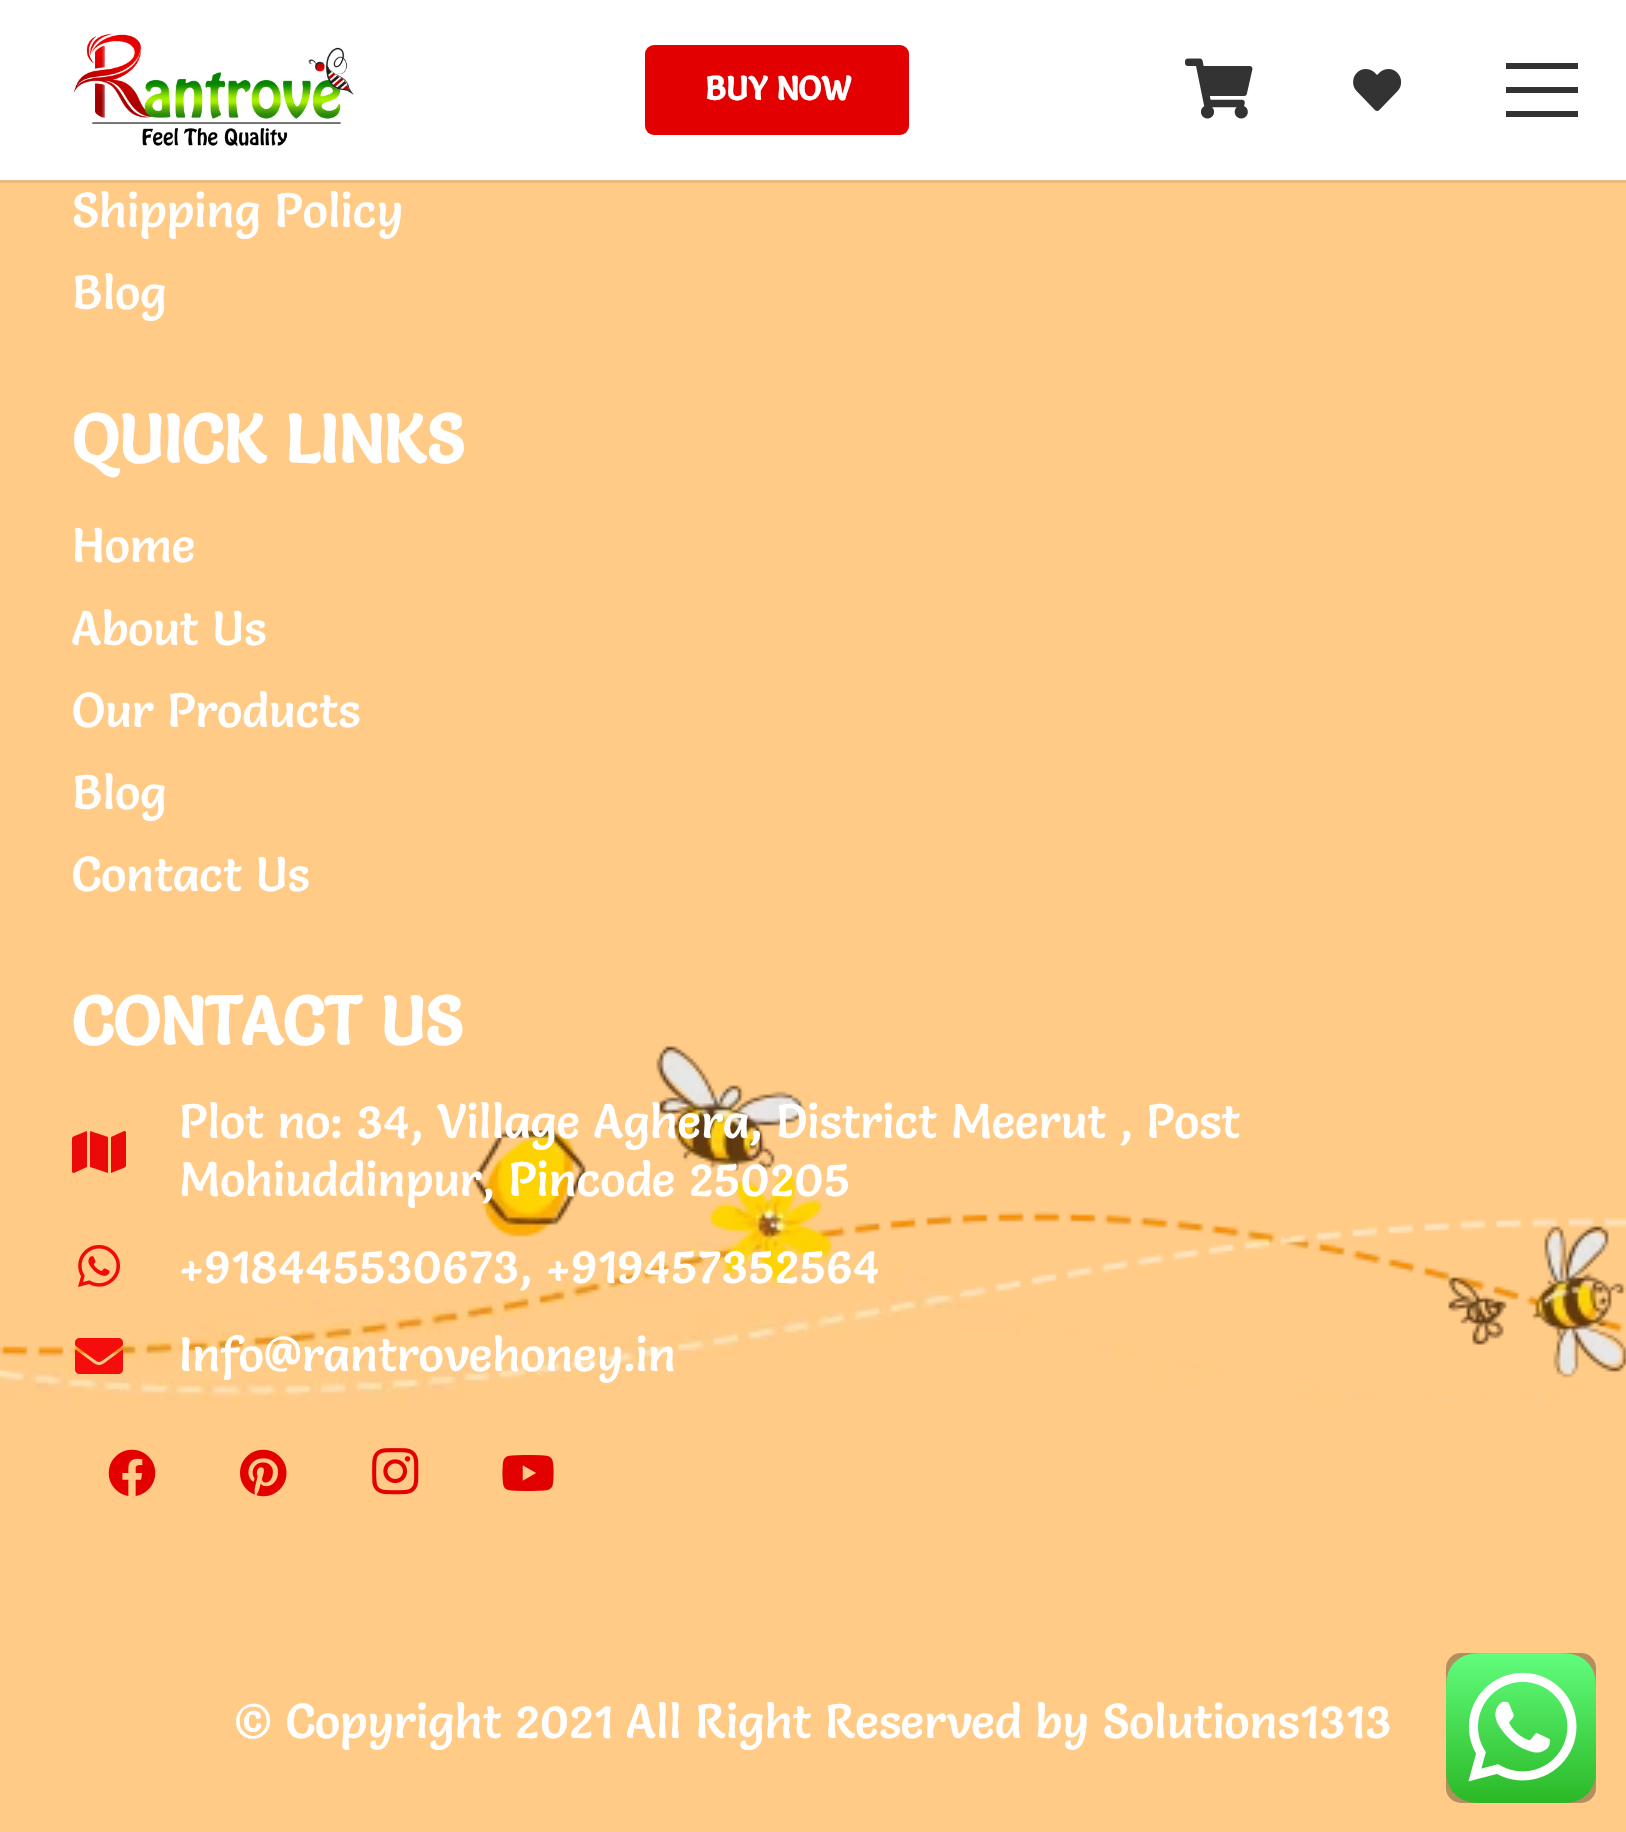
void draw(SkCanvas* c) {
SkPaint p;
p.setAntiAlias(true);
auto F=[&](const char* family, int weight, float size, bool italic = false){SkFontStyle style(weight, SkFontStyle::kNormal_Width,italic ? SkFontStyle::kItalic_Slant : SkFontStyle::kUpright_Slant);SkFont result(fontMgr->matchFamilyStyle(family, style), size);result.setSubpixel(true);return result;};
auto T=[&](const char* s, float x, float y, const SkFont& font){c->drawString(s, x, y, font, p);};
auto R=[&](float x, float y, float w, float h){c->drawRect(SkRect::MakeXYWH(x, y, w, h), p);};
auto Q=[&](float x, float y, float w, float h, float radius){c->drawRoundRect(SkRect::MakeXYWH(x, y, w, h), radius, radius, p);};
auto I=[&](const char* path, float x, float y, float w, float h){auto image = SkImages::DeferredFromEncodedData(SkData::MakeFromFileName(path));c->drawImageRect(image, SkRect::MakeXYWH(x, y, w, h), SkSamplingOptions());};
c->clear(0xffffcb86);
p.setColor(0xffebbb7b);
R(0,180,1626,3);
p.setColor(0xffffffff);
R(0,0,1626,180);
I("1.png",73,34,281,113);
p.setColor(0xffe30000);
Q(645,45,264,90,9);
auto f1 = F("Salsa",700,33);
p.setColor(0xffffffff);
T("BUY NOW",705,100,f1);
I("2.png",1185,58,68,61);
I("3.png",1353,69,49,42);
p.setColor(0xff333333);
R(1506,87,72,6);
R(1506,63,72,6);
R(1506,111,72,6);
I("4.png",0,1046,1626,355);
auto f2 = F("Salsa",400,48);
p.setColor(0xffffffff);
T("Shipping Policy",72,227,f2);
T("Blog",72,309,f2);
auto f3 = F("Salsa",700,67.25);
T("QUICK LINKS",72,463,f3);
T("Home",72,562,f2);
T("About Us",72,645,f2);
T("Our Products",72,727,f2);
T("Blog",72,809,f2);
T("Contact Us",72,891,f2);
T("CONTACT US",72,1045,f3);
I("5.png",72,1131,54,42);
T("Plot no: 34, Village Aghera, District Meerut , Post",179,1138,f2);
T("Mohiuddinpur, Pincode 250205",179,1196,f2);
I("6.png",78,1245,42,42);
T("+918445530673, +919457352564",179,1283,f2);
I("7.png",75,1338,48,36);
T("Info@rantrovehoney.in",179,1371,f2);
I("8.png",108,1449,48,47);
I("9.png",240,1449,47,48);
I("10.png",372,1448,47,47);
I("11.png",502,1455,52,36);
T("© Copyright 2021 All Right Reserved by Solutions1313",234,1738,f2);
p.setColor(0xffb38e5e);
Q(1446,1653,150,150,15);
I("12.png",1446,1653,150,150);
}
